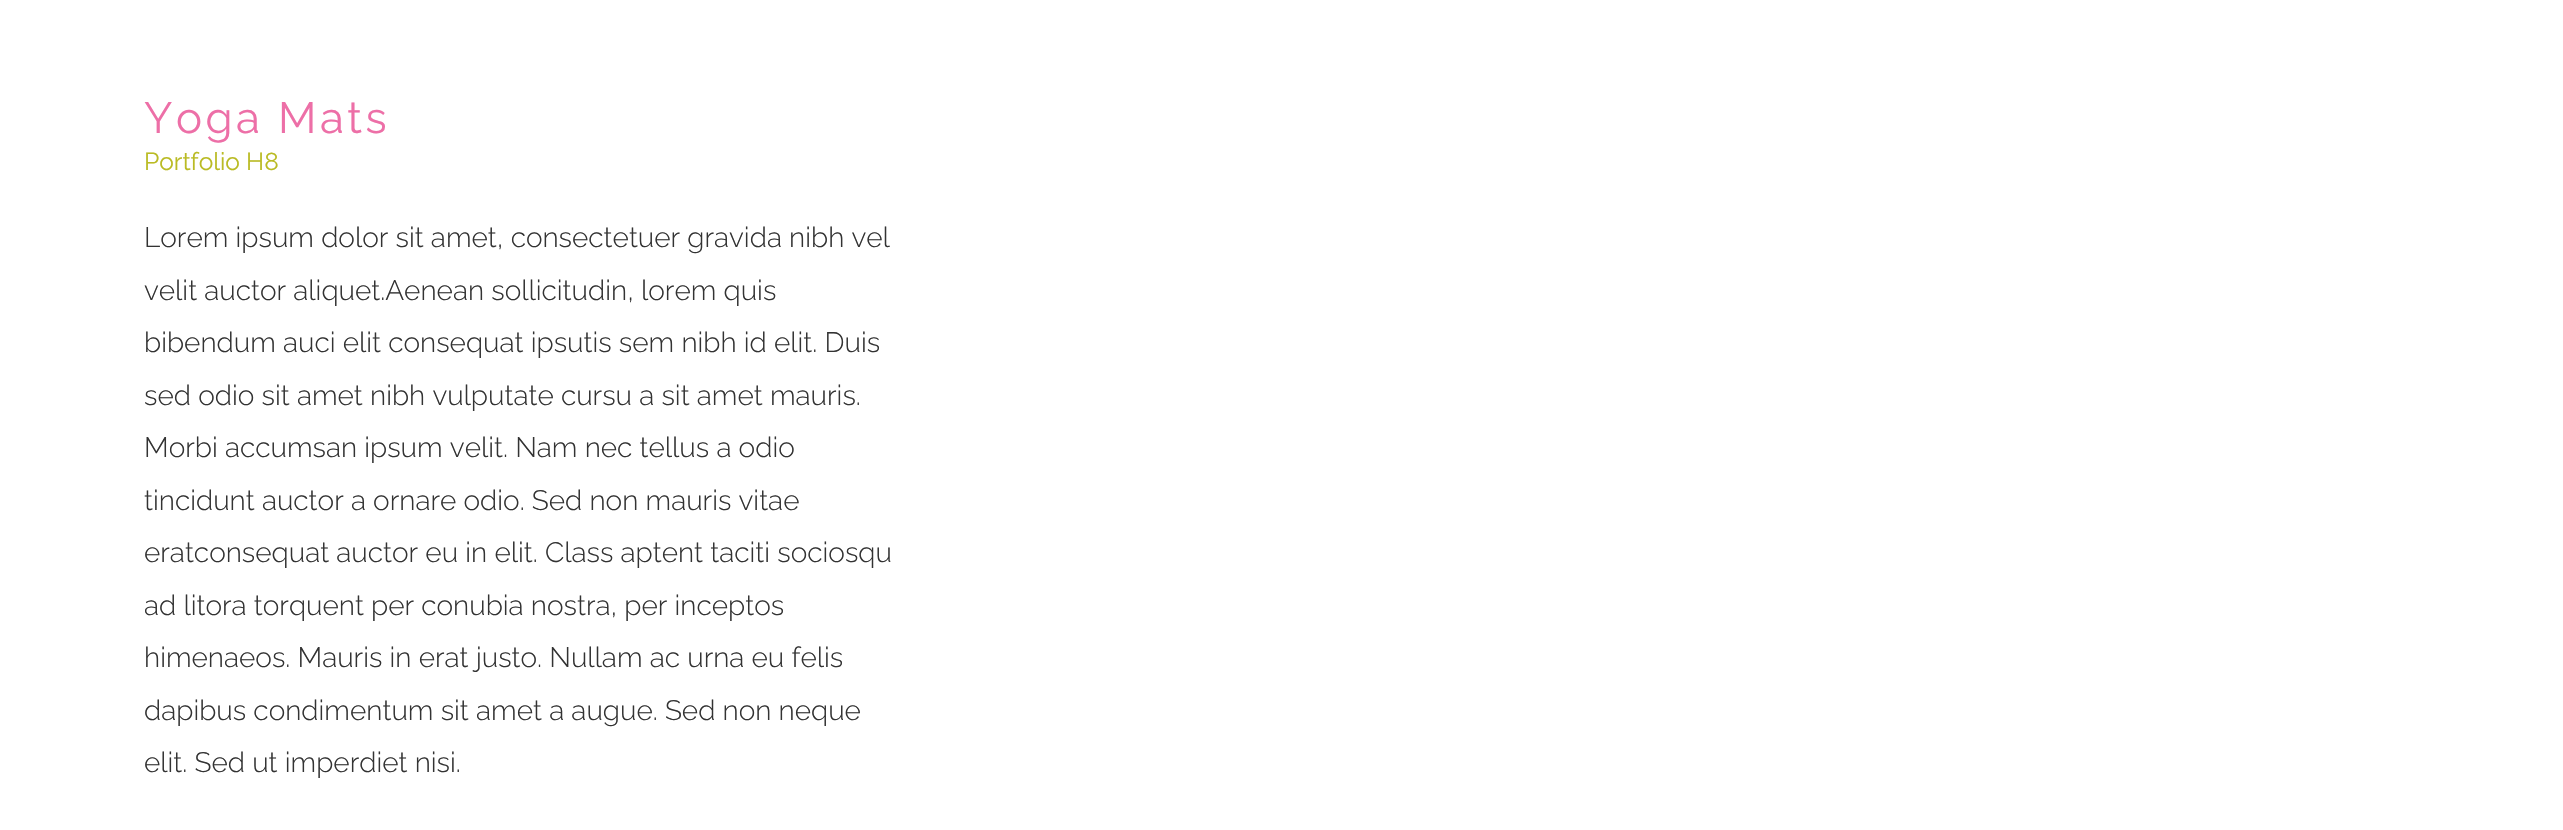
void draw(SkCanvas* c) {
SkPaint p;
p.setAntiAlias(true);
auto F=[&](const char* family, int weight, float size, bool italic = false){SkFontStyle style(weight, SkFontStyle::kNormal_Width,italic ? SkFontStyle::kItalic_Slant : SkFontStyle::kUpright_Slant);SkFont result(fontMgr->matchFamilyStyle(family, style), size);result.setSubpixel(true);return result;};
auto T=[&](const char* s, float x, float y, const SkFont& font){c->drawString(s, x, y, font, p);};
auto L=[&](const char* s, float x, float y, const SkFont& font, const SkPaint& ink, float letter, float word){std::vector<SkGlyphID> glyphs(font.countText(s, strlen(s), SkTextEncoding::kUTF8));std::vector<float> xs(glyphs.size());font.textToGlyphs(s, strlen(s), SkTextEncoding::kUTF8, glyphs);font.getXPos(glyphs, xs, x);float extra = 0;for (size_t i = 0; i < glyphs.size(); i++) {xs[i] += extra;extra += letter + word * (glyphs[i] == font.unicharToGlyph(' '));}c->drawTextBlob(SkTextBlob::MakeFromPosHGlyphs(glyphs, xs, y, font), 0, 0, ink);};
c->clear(0xffffffff);
auto f1 = F("Raleway",400,43.75);
p.setColor(0xffed6fa7);
L("Yoga Mats",144,133,f1,p,3.5,0);
auto f2 = F("Raleway",400,24.5);
p.setColor(0xffbabb24);
T("Portfolio H8",144,170,f2);
auto f3 = F("Raleway",300,28);
p.setColor(0xff333333);
T("Lorem ipsum dolor sit amet, consectetuer gravida nibh vel",144,247,f3);
T("velit auctor aliquet.Aenean sollicitudin, lorem quis",144,300,f3);
T("bibendum auci elit consequat ipsutis sem nibh id elit. Duis",144,352,f3);
T("sed odio sit amet nibh vulputate cursu a sit amet mauris.",144,405,f3);
T("Morbi accumsan ipsum velit. Nam nec tellus a odio",144,457,f3);
T("tincidunt auctor a ornare odio. Sed non mauris vitae",144,510,f3);
T("eratconsequat auctor eu in elit. Class aptent taciti sociosqu",144,562,f3);
T("ad litora torquent per conubia nostra, per inceptos",144,615,f3);
T("himenaeos. Mauris in erat justo. Nullam ac urna eu felis",144,667,f3);
T("dapibus condimentum sit amet a augue. Sed non neque",144,720,f3);
T("elit. Sed ut imperdiet nisi.",144,772,f3);
}
